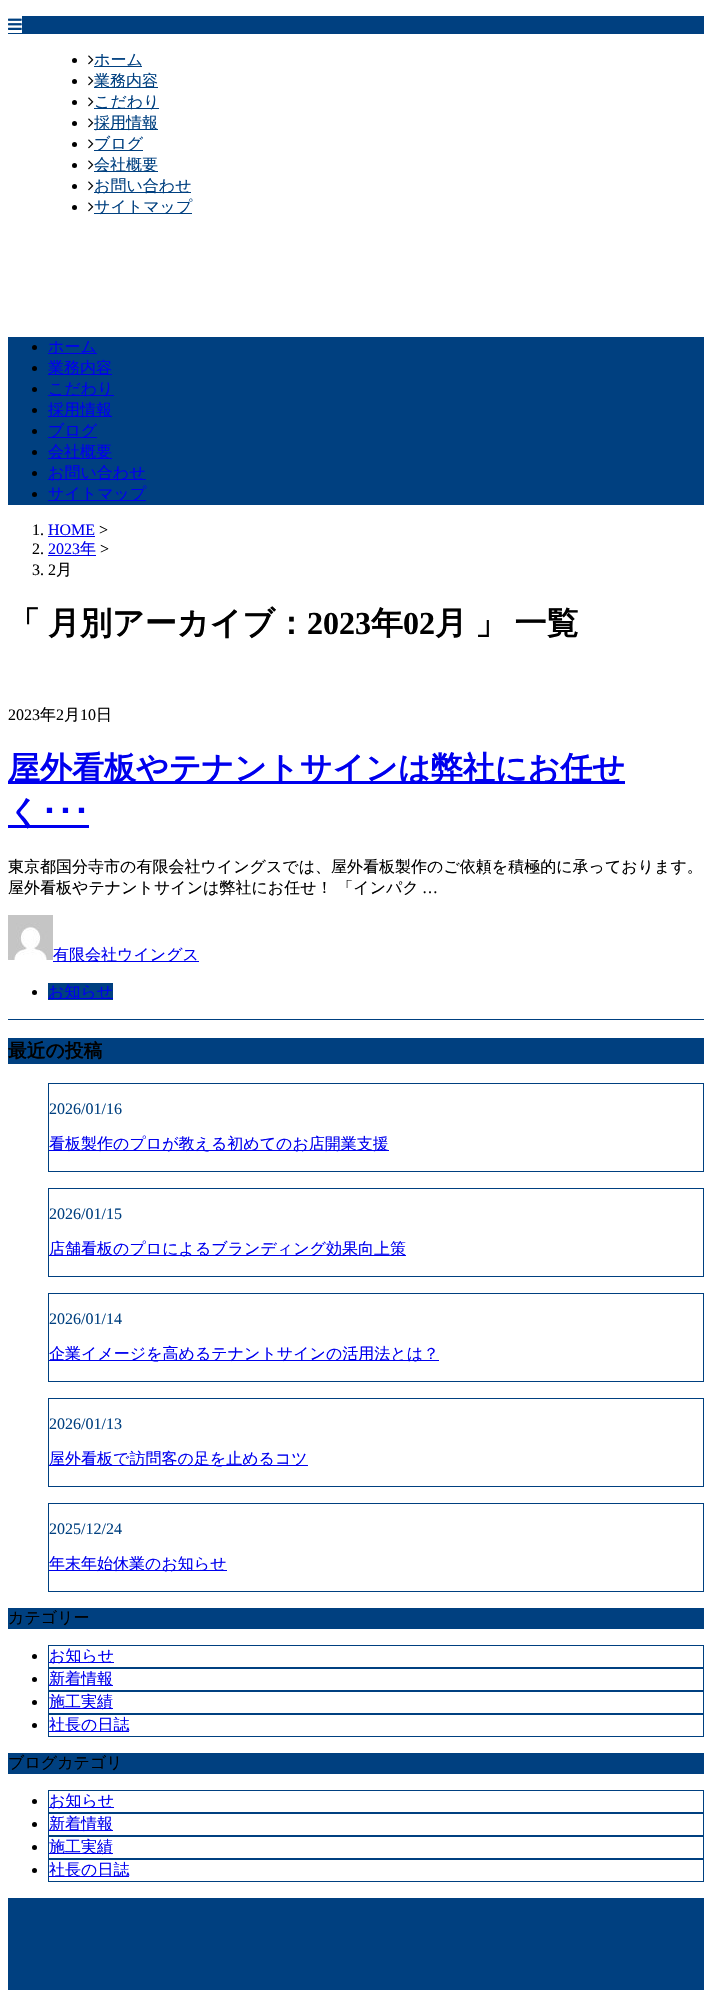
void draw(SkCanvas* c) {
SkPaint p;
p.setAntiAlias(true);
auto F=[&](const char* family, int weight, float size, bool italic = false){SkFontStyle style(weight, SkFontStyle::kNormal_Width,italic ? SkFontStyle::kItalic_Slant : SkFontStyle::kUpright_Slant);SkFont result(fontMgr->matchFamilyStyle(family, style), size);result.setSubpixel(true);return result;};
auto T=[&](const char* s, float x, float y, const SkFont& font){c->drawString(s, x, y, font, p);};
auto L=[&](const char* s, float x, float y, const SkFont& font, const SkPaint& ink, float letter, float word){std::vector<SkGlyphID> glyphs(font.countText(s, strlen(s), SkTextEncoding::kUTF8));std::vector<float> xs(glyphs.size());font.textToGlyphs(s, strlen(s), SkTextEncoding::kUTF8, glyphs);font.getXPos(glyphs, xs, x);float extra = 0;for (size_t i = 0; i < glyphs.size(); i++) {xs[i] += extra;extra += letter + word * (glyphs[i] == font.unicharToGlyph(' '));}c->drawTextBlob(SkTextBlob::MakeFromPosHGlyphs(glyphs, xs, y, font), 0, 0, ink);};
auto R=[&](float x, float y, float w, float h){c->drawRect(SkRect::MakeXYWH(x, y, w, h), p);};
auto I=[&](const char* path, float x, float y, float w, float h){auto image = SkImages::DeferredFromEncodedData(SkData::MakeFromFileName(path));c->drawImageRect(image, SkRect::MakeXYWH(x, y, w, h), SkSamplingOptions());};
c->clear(0xffffffff);
p.setColor(0xff004080);
R(8,16,696,18);
p.setColor(0xffffffff);
R(8,16,14,17);
I("1.png",8,18,14,12);
p.setColor(0xff000000);
c->drawCircle(74.5,60.5,2.5,p);
I("2.png",88,55,6,10);
p.setColor(0xff004080);
R(94,66,48,1);
auto f1 = F("WenQuanYi Zen Hei",500,16);
T("ホーム",94,65,f1);
p.setColor(0xff000000);
c->drawCircle(74.5,81.5,2.5,p);
I("2.png",88,76,6,10);
p.setColor(0xff004080);
R(94,87,64,1);
T("業務内容",94,86,f1);
p.setColor(0xff000000);
c->drawCircle(74.5,102.5,2.5,p);
I("2.png",88,97,6,10);
p.setColor(0xff004080);
R(94,108,65,1);
T("こだわり",94,107,f1);
p.setColor(0xff000000);
c->drawCircle(74.5,123.5,2.5,p);
I("2.png",88,118,6,10);
p.setColor(0xff004080);
R(94,129,64,1);
T("採用情報",94,128,f1);
p.setColor(0xff000000);
c->drawCircle(74.5,144.5,2.5,p);
I("2.png",88,139,6,10);
p.setColor(0xff004080);
R(94,150,49,1);
T("ブログ",94,149,f1);
p.setColor(0xff000000);
c->drawCircle(74.5,165.5,2.5,p);
I("2.png",88,160,6,10);
p.setColor(0xff004080);
R(94,171,64,1);
T("会社概要",94,170,f1);
p.setColor(0xff000000);
c->drawCircle(74.5,186.5,2.5,p);
I("2.png",88,181,6,10);
p.setColor(0xff004080);
R(94,192,97,1);
T("お問い合わせ",94,191,f1);
p.setColor(0xff000000);
c->drawCircle(74.5,207.5,2.5,p);
I("2.png",88,202,6,10);
p.setColor(0xff004080);
R(94,213,98,1);
T("サイトマップ",94,212,f1);
R(8,337,696,168);
p.setColor(0xff000000);
c->drawCircle(34.5,347.5,2.5,p);
p.setColor(0xff0000ee);
R(48,353,49,1);
T("ホーム",48,352,f1);
p.setColor(0xff000000);
c->drawCircle(34.5,368.5,2.5,p);
p.setColor(0xff0000ee);
R(48,374,64,1);
T("業務内容",48,373,f1);
p.setColor(0xff000000);
c->drawCircle(34.5,389.5,2.5,p);
p.setColor(0xff0000ee);
R(48,395,66,1);
T("こだわり",48,394,f1);
p.setColor(0xff000000);
c->drawCircle(34.5,410.5,2.5,p);
p.setColor(0xff0000ee);
R(48,416,64,1);
T("採用情報",48,415,f1);
p.setColor(0xff000000);
c->drawCircle(34.5,431.5,2.5,p);
p.setColor(0xff0000ee);
R(48,437,49,1);
T("ブログ",48,436,f1);
p.setColor(0xff000000);
c->drawCircle(34.5,452.5,2.5,p);
p.setColor(0xff0000ee);
R(48,458,64,1);
T("会社概要",48,457,f1);
p.setColor(0xff000000);
c->drawCircle(34.5,473.5,2.5,p);
p.setColor(0xff0000ee);
R(48,479,98,1);
T("お問い合わせ",48,478,f1);
p.setColor(0xff000000);
c->drawCircle(34.5,494.5,2.5,p);
p.setColor(0xff0000ee);
R(48,500,98,1);
T("サイトマップ",48,499,f1);
auto f2 = F("Liberation Serif",400,16);
p.setColor(0xff000000);
T("1.",32,535,f2);
p.setColor(0xff0000ee);
T("HOME",48,535,f2);
R(48,536,47,1);
p.setColor(0xff000000);
T(">",99,535,f2);
T("2.",32,554,f2);
p.setColor(0xff0000ee);
T("2023",48,554,f2);
R(48,555,48,1);
T("年",80,554,f1);
p.setColor(0xff000000);
T(">",100,554,f2);
T("3. 2",32,575,f2);
T("月",56,575,f1);
auto f3 = F("WenQuanYi Zen Hei",700,32);
T("「",8,634,f3);
T("月別アーカイブ：",48,634,f3);
auto f4 = F("Liberation Serif",700,32);
T("2023",307,634,f4);
T("年",371,634,f3);
T("02",403,634,f4);
T("月",435,634,f3);
L("」 一覧",475,634,f3,p,0,-2);
p.setColor(0xff004080);
R(8,1019,696,1);
p.setColor(0xff000000);
T("2023",8,720,f2);
T("年",40,720,f1);
T("2",56,720,f2);
T("月",64,720,f1);
T("10",80,720,f2);
T("日",96,720,f1);
p.setColor(0xff0000ee);
R(8,781,617,3);
T("屋外看板やテナントサインは弊社にお任せ",8,779,f3);
R(8,825,81,3);
T("く",8,823,f3);
auto f5 = F("IPAPGothic",700,32);
T("･･･",41,823,f5);
p.setColor(0xff000000);
T("東京都国分寺市の有限会社ウイングスでは、屋外看板製作のご依頼を積極的に承っております。",8,872,f1);
T("屋外看板やテナントサインは弊社にお任せ！ 「インパク",8,893,f1);
T("…",422,893,f2);
I("3.png",8,915,45,45);
p.setColor(0xff0000ee);
R(53,961,146,1);
T("有限会社ウイングス",53,960,f1);
p.setColor(0xff000000);
c->drawCircle(34.5,992.5,2.5,p);
p.setColor(0xff004080);
R(48,983,65,17);
p.setColor(0xff0000ee);
R(48,998,65,1);
T("お知らせ",48,997,f1);
p.setColor(0xff004080);
R(8,1038,696,26);
auto f6 = F("WenQuanYi Zen Hei",700,18.75);
p.setColor(0xff000000);
T("最近の投稿",8,1057,f6);
p.setStroke(true);
p.setStrokeWidth(1);
p.setColor(0xff004080);
c->drawRect(SkRect::MakeXYWH(48.5,1083.5,655,88),p);
p.setStroke(false);
T("2026/01/16",49,1114,f2);
p.setColor(0xff0000ee);
R(49,1150,340,1);
T("看板製作のプロが教える初めてのお店開業支援",49,1149,f1);
p.setStroke(true);
p.setColor(0xff004080);
c->drawRect(SkRect::MakeXYWH(48.5,1188.5,655,88),p);
p.setStroke(false);
T("2026/01/15",49,1219,f2);
p.setColor(0xff0000ee);
R(49,1255,357,1);
T("店舗看板のプロによるブランディング効果向上策",49,1254,f1);
p.setStroke(true);
p.setColor(0xff004080);
c->drawRect(SkRect::MakeXYWH(48.5,1293.5,655,88),p);
p.setStroke(false);
T("2026/01/14",49,1324,f2);
p.setColor(0xff0000ee);
R(49,1360,390,1);
T("企業イメージを高めるテナントサインの活用法とは？",49,1359,f1);
p.setStroke(true);
p.setColor(0xff004080);
c->drawRect(SkRect::MakeXYWH(48.5,1398.5,655,88),p);
p.setStroke(false);
T("2026/01/13",49,1429,f2);
p.setColor(0xff0000ee);
R(49,1465,259,1);
T("屋外看板で訪問客の足を止めるコツ",49,1464,f1);
p.setStroke(true);
p.setColor(0xff004080);
c->drawRect(SkRect::MakeXYWH(48.5,1503.5,655,88),p);
p.setStroke(false);
T("2025/12/24",49,1534,f2);
p.setColor(0xff0000ee);
R(49,1570,178,1);
T("年末年始休業のお知らせ",49,1569,f1);
p.setColor(0xff004080);
R(8,1608,696,21);
p.setColor(0xff000000);
T("カテゴリー",8,1623,f1);
p.setStroke(true);
p.setColor(0xff004080);
c->drawRect(SkRect::MakeXYWH(48.5,1645.5,655,22),p);
p.setStroke(false);
p.setColor(0xff000000);
c->drawCircle(34.5,1656.5,2.5,p);
p.setColor(0xff0000ee);
R(49,1662,65,1);
T("お知らせ",49,1661,f1);
p.setStroke(true);
p.setColor(0xff004080);
c->drawRect(SkRect::MakeXYWH(48.5,1668.5,655,22),p);
p.setStroke(false);
p.setColor(0xff000000);
c->drawCircle(34.5,1679.5,2.5,p);
p.setColor(0xff0000ee);
R(49,1685,64,1);
T("新着情報",49,1684,f1);
p.setStroke(true);
p.setColor(0xff004080);
c->drawRect(SkRect::MakeXYWH(48.5,1691.5,655,22),p);
p.setStroke(false);
p.setColor(0xff000000);
c->drawCircle(34.5,1702.5,2.5,p);
p.setColor(0xff0000ee);
R(49,1708,64,1);
T("施工実績",49,1707,f1);
p.setStroke(true);
p.setColor(0xff004080);
c->drawRect(SkRect::MakeXYWH(48.5,1714.5,655,22),p);
p.setStroke(false);
p.setColor(0xff000000);
c->drawCircle(34.5,1725.5,2.5,p);
p.setColor(0xff0000ee);
R(49,1731,80,1);
T("社長の日誌",49,1730,f1);
p.setColor(0xff004080);
R(8,1753,696,21);
p.setColor(0xff000000);
T("ブログカテゴリ",8,1768,f1);
p.setStroke(true);
p.setColor(0xff004080);
c->drawRect(SkRect::MakeXYWH(48.5,1790.5,655,22),p);
p.setStroke(false);
p.setColor(0xff000000);
c->drawCircle(34.5,1801.5,2.5,p);
p.setColor(0xff0000ee);
R(49,1807,65,1);
T("お知らせ",49,1806,f1);
p.setStroke(true);
p.setColor(0xff004080);
c->drawRect(SkRect::MakeXYWH(48.5,1813.5,655,22),p);
p.setStroke(false);
p.setColor(0xff000000);
c->drawCircle(34.5,1824.5,2.5,p);
p.setColor(0xff0000ee);
R(49,1830,64,1);
T("新着情報",49,1829,f1);
p.setStroke(true);
p.setColor(0xff004080);
c->drawRect(SkRect::MakeXYWH(48.5,1836.5,655,22),p);
p.setStroke(false);
p.setColor(0xff000000);
c->drawCircle(34.5,1847.5,2.5,p);
p.setColor(0xff0000ee);
R(49,1853,64,1);
T("施工実績",49,1852,f1);
p.setStroke(true);
p.setColor(0xff004080);
c->drawRect(SkRect::MakeXYWH(48.5,1859.5,655,22),p);
p.setStroke(false);
p.setColor(0xff000000);
c->drawCircle(34.5,1870.5,2.5,p);
p.setColor(0xff0000ee);
R(49,1876,80,1);
T("社長の日誌",49,1875,f1);
p.setColor(0xff004080);
R(8,1898,696,92);
}
